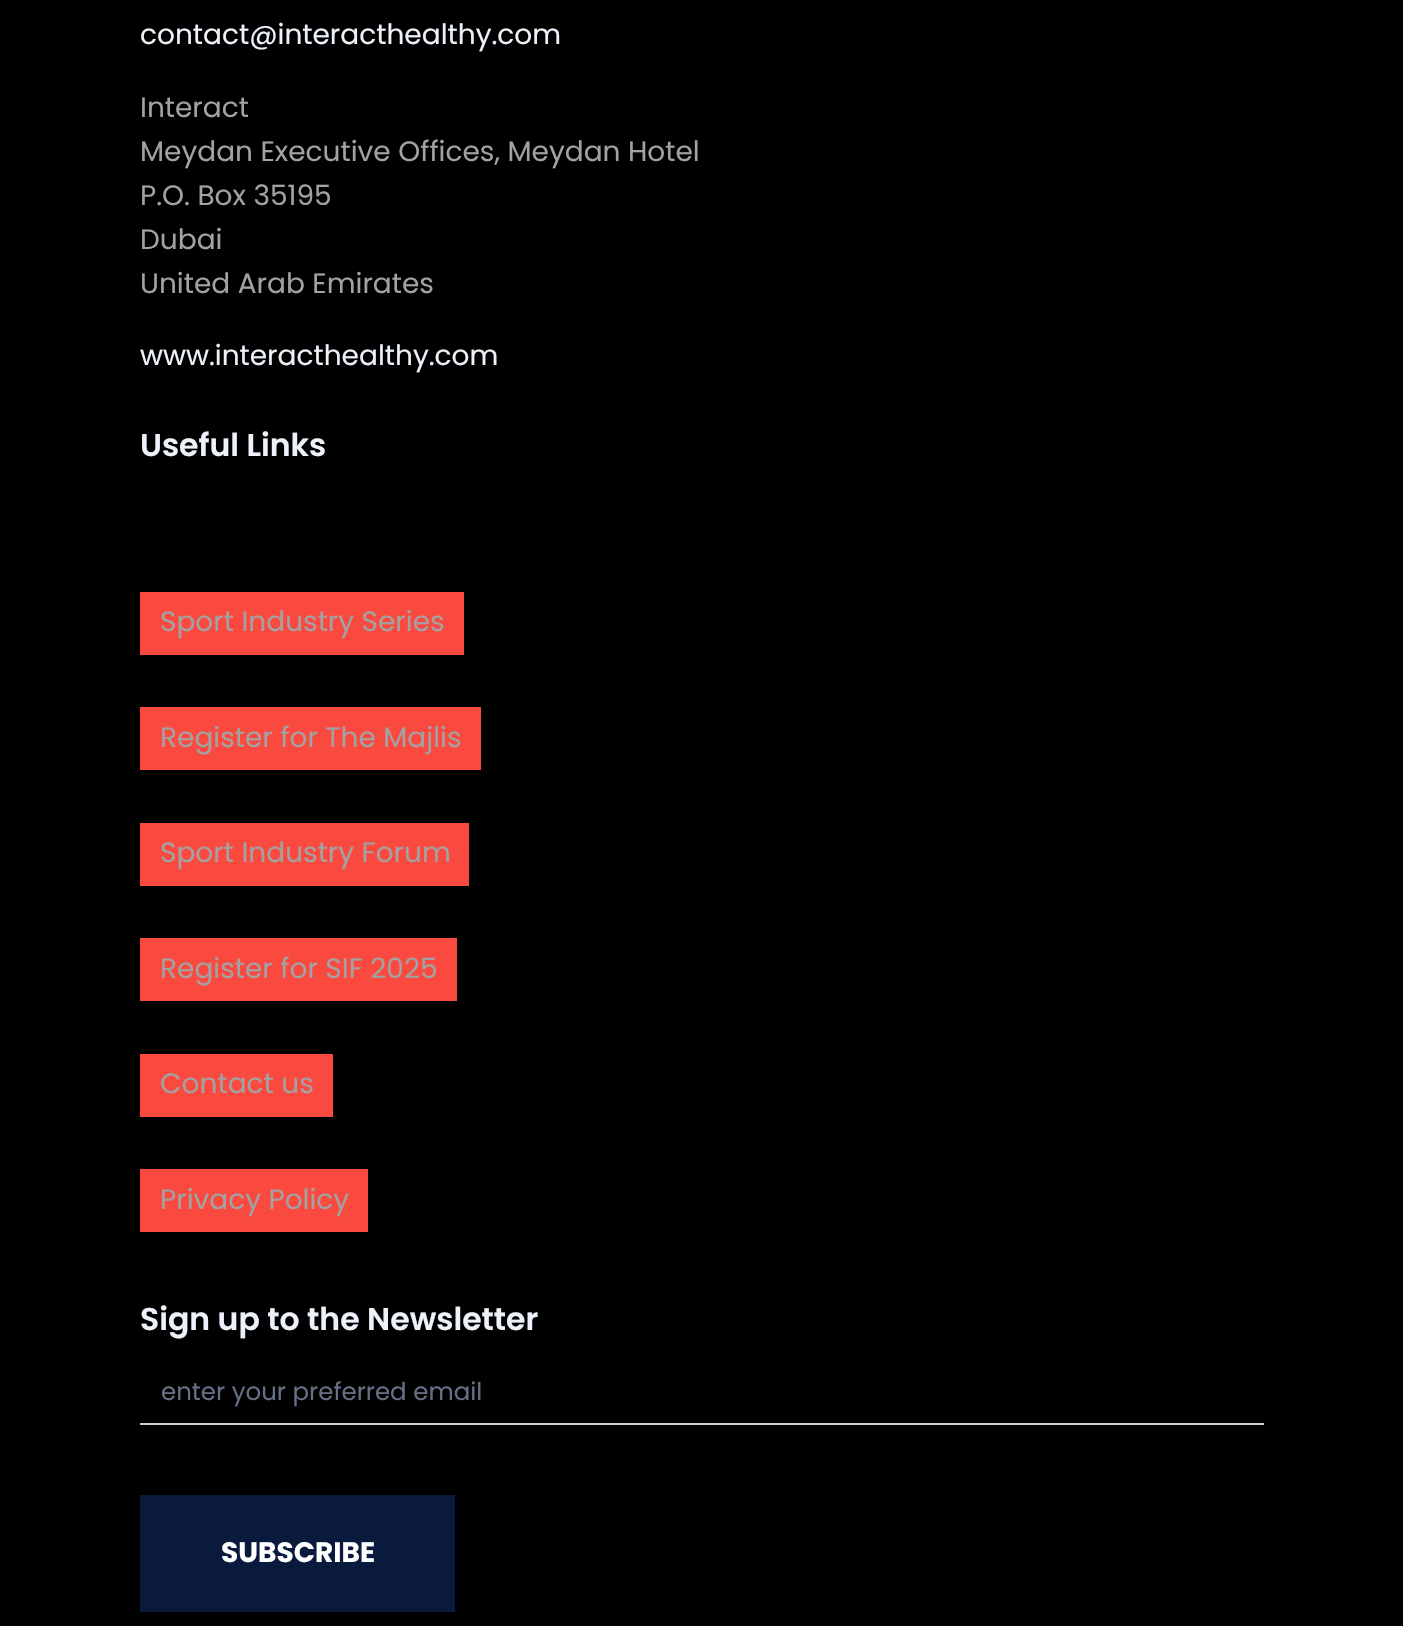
void draw(SkCanvas* c) {
SkPaint p;
p.setAntiAlias(true);
auto F=[&](const char* family, int weight, float size, bool italic = false){SkFontStyle style(weight, SkFontStyle::kNormal_Width,italic ? SkFontStyle::kItalic_Slant : SkFontStyle::kUpright_Slant);SkFont result(fontMgr->matchFamilyStyle(family, style), size);result.setSubpixel(true);return result;};
auto T=[&](const char* s, float x, float y, const SkFont& font){c->drawString(s, x, y, font, p);};
auto R=[&](float x, float y, float w, float h){c->drawRect(SkRect::MakeXYWH(x, y, w, h), p);};
c->clear(0xff000000);
auto f1 = F("Poppins",400,28);
p.setColor(0xffedf2fa);
T("contact@interacthealthy.com",140,44,f1);
p.setColor(0xffa2a2a2);
T("Interact",140,117,f1);
T("Meydan Executive Offices, Meydan Hotel",140,161,f1);
T("P.O. Box 35195",140,205,f1);
T("Dubai",140,249,f1);
T("United Arab Emirates",140,293,f1);
p.setColor(0xffedf2fa);
T("www.interacthealthy.com",140,365,f1);
auto f2 = F("Poppins",600,31.5);
T("Useful Links",140,456,f2);
p.setColor(0xfffa4a40);
R(140,592,324,63);
p.setColor(0xffa2a2a2);
T("Sport Industry Series",160,631,f1);
p.setColor(0xfffa4a40);
R(140,707,341,63);
p.setColor(0xffa2a2a2);
T("Register for The Majlis",160,747,f1);
p.setColor(0xfffa4a40);
R(140,823,329,63);
p.setColor(0xffa2a2a2);
T("Sport Industry Forum",160,862,f1);
p.setColor(0xfffa4a40);
R(140,938,317,63);
p.setColor(0xffa2a2a2);
T("Register for SIF 2025",160,978,f1);
p.setColor(0xfffa4a40);
R(140,1054,193,63);
p.setColor(0xffa2a2a2);
T("Contact us",160,1093,f1);
p.setColor(0xfffa4a40);
R(140,1169,228,63);
p.setColor(0xffa2a2a2);
T("Privacy Policy",160,1209,f1);
p.setColor(0xffedf2fa);
T("Sign up to the Newsletter",140,1330,f2);
p.setColor(0xffcecece);
R(140,1423,1124,2);
auto f3 = F("Poppins",400,24.5);
p.setColor(0xff667085);
T("enter your preferred email",161,1400,f3);
p.setColor(0xff0a1a3d);
R(140,1495,315,117);
auto f4 = F("Poppins",700,28);
p.setColor(0xffffffff);
T("SUBSCRIBE",221,1562,f4);
}
